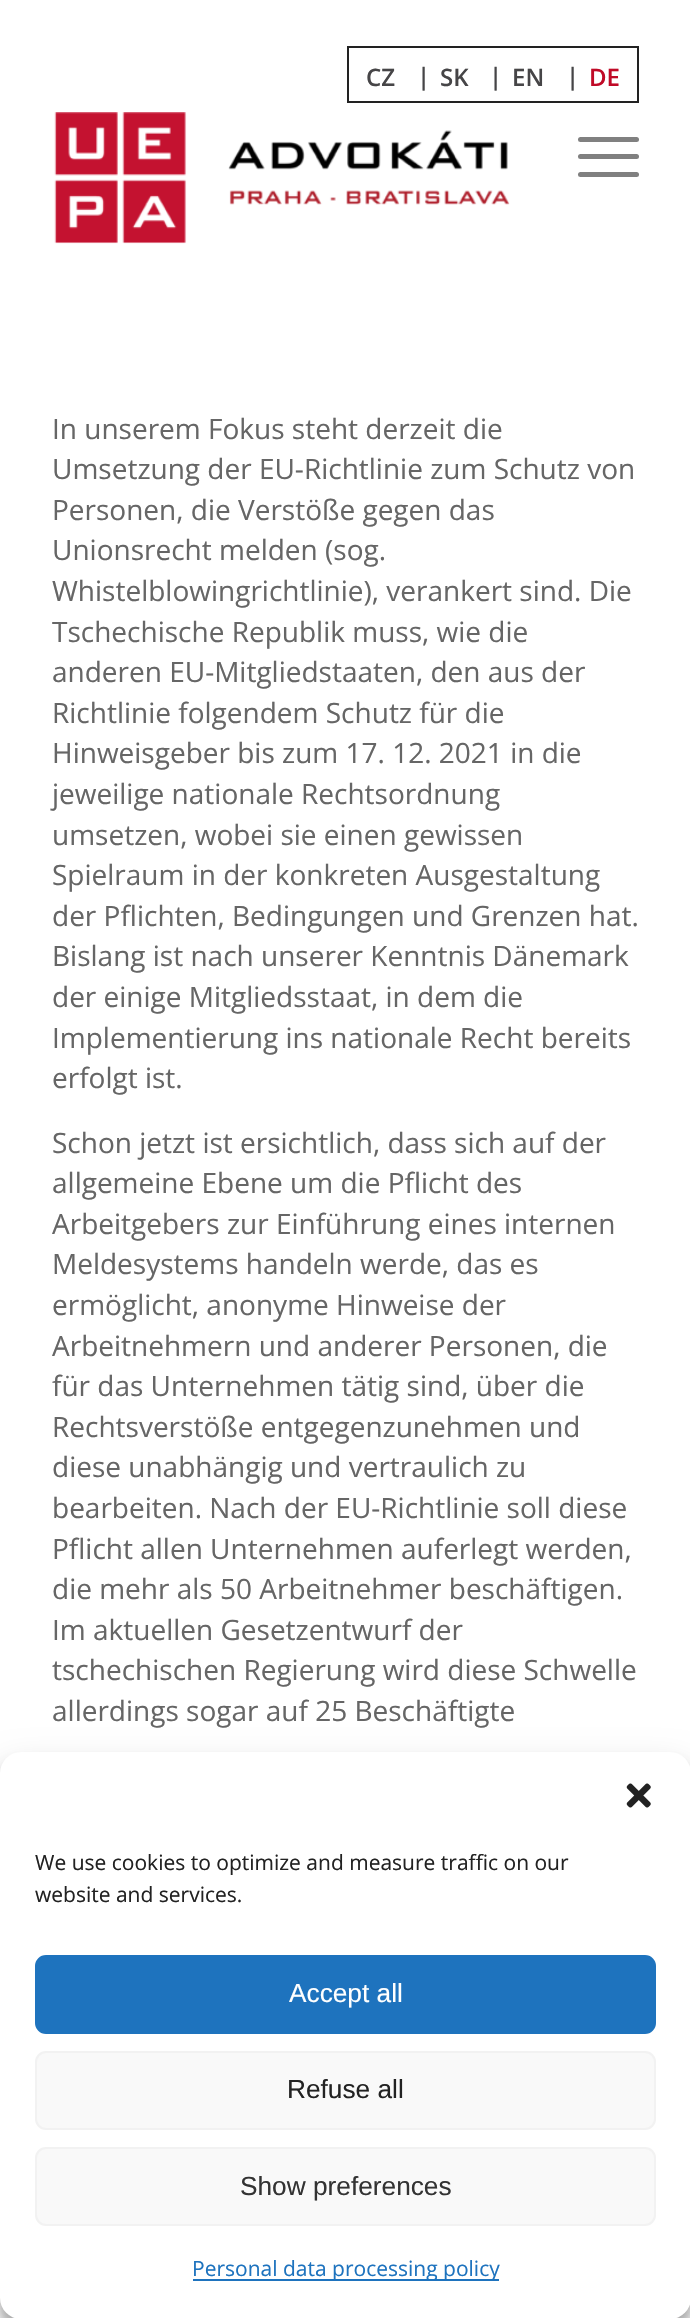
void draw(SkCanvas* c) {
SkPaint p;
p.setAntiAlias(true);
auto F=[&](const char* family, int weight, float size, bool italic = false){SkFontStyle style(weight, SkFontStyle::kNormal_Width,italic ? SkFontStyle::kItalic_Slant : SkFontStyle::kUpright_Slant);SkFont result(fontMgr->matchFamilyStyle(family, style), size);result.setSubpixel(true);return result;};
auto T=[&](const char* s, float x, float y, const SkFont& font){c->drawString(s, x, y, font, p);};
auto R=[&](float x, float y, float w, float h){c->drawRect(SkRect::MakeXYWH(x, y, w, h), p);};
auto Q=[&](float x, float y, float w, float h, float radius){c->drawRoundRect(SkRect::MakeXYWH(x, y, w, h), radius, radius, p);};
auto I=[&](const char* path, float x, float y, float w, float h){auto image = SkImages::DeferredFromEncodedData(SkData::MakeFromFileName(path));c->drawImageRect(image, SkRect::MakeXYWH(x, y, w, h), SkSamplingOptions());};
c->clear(0xffffffff);
p.setStroke(true);
p.setStrokeWidth(2);
p.setColor(0xff222222);
c->drawRect(SkRect::MakeXYWH(348,47,290,55),p);
auto f1 = F("Open Sans",600,24);
p.setStroke(false);
p.setColor(0xff464547);
T("CZ",366,86,f1);
T("|",417,85,f1);
T("SK",440,86,f1);
T("|",489,85,f1);
T("EN",512,86,f1);
T("|",566,85,f1);
p.setColor(0xffc00a27);
T("DE",589,86,f1);
I("1.png",54,112,456,132);
p.setColor(0xff808080);
Q(578,154,61,5,2.5);
Q(578,137,61,5,2.5);
Q(578,172,61,5,2.5);
auto f2 = F("Open Sans",400,28);
p.setColor(0xff666666);
T("In unserem Fokus steht derzeit die",52,439,f2);
T("Umsetzung der EU-Richtlinie zum Schutz von",52,479,f2);
T("Personen, die Verstöße gegen das",52,520,f2);
T("Unionsrecht melden (sog.",52,560,f2);
T("Whistelblowingrichtlinie), verankert sind. Die",52,601,f2);
T("Tschechische Republik muss, wie die",52,642,f2);
T("anderen EU-Mitgliedstaaten, den aus der",52,682,f2);
T("Richtlinie folgendem Schutz für die",52,723,f2);
T("Hinweisgeber bis zum 17. 12. 2021 in die",52,763,f2);
T("jeweilige nationale Rechtsordnung",52,804,f2);
T("umsetzen, wobei sie einen gewissen",52,845,f2);
T("Spielraum in der konkreten Ausgestaltung",52,885,f2);
T("der Pflichten, Bedingungen und Grenzen hat.",52,926,f2);
T("Bislang ist nach unserer Kenntnis Dänemark",52,966,f2);
T("der einige Mitgliedsstaat, in dem die",52,1007,f2);
T("Implementierung ins nationale Recht bereits",52,1048,f2);
T("erfolgt ist.",52,1088,f2);
T("Schon jetzt ist ersichtlich, dass sich auf der",52,1153,f2);
T("allgemeine Ebene um die Pflicht des",52,1193,f2);
T("Arbeitgebers zur Einführung eines internen",52,1234,f2);
T("Meldesystems handeln werde, das es",52,1274,f2);
T("ermöglicht, anonyme Hinweise der",52,1315,f2);
T("Arbeitnehmern und anderer Personen, die",52,1356,f2);
T("für das Unternehmen tätig sind, über die",52,1396,f2);
T("Rechtsverstöße entgegenzunehmen und",52,1437,f2);
T("diese unabhängig und vertraulich zu",52,1477,f2);
T("bearbeiten. Nach der EU-Richtlinie soll diese",52,1518,f2);
T("Pflicht allen Unternehmen auferlegt werden,",52,1559,f2);
T("die mehr als 50 Arbeitnehmer beschäftigen.",52,1599,f2);
T("Im aktuellen Gesetzentwurf der",52,1640,f2);
T("tschechischen Regierung wird diese Schwelle",52,1680,f2);
T("allerdings sogar auf 25 Beschäftigte",52,1721,f2);
p.setColor(0x3b000000);
p.setMaskFilter(SkMaskFilter::MakeBlur(kNormal_SkBlurStyle, 5));
c->drawRoundRect(SkRect::MakeXYWH(0,1762,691,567),21,21,p);
p.setMaskFilter(nullptr);
p.setColor(0x30000000);
p.setMaskFilter(SkMaskFilter::MakeBlur(kNormal_SkBlurStyle, 17.5));
c->drawRoundRect(SkRect::MakeXYWH(0,1769,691,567),21,21,p);
p.setMaskFilter(nullptr);
p.setColor(0xffffffff);
Q(0,1752,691,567,21);
I("2.png",626,1783,25,25);
auto f3 = F("Open Sans",400,21);
p.setColor(0xff222222);
T("We use cookies to optimize and measure traffic on our",35,1870,f3);
T("website and services.",35,1902,f3);
p.setColor(0xff1e73be);
c->drawRoundRect(SkRect::MakeXYWH(36,1956,619,77),10,10,p);
p.setStroke(true);
c->drawRoundRect(SkRect::MakeXYWH(36,1956,619,77),10,10,p);
auto f4 = F("Liberation Sans",400,26.25);
p.setStroke(false);
p.setColor(0xffffffff);
T("Accept all",289,2002,f4);
p.setColor(0xfff9f9f9);
c->drawRoundRect(SkRect::MakeXYWH(36,2052,619,77),10,10,p);
p.setStroke(true);
p.setColor(0xfff2f2f2);
c->drawRoundRect(SkRect::MakeXYWH(36,2052,619,77),10,10,p);
p.setStroke(false);
p.setColor(0xff222222);
T("Refuse all",287,2098,f4);
p.setColor(0xfff9f9f9);
c->drawRoundRect(SkRect::MakeXYWH(36,2148,619,77),10,10,p);
p.setStroke(true);
p.setColor(0xfff2f2f2);
c->drawRoundRect(SkRect::MakeXYWH(36,2148,619,77),10,10,p);
p.setStroke(false);
p.setColor(0xff333333);
T("Show preferences",240,2195,f4);
p.setColor(0xff1e73be);
R(193,2279,306,2);
T("Personal data processing policy",192,2276,f3);
}
